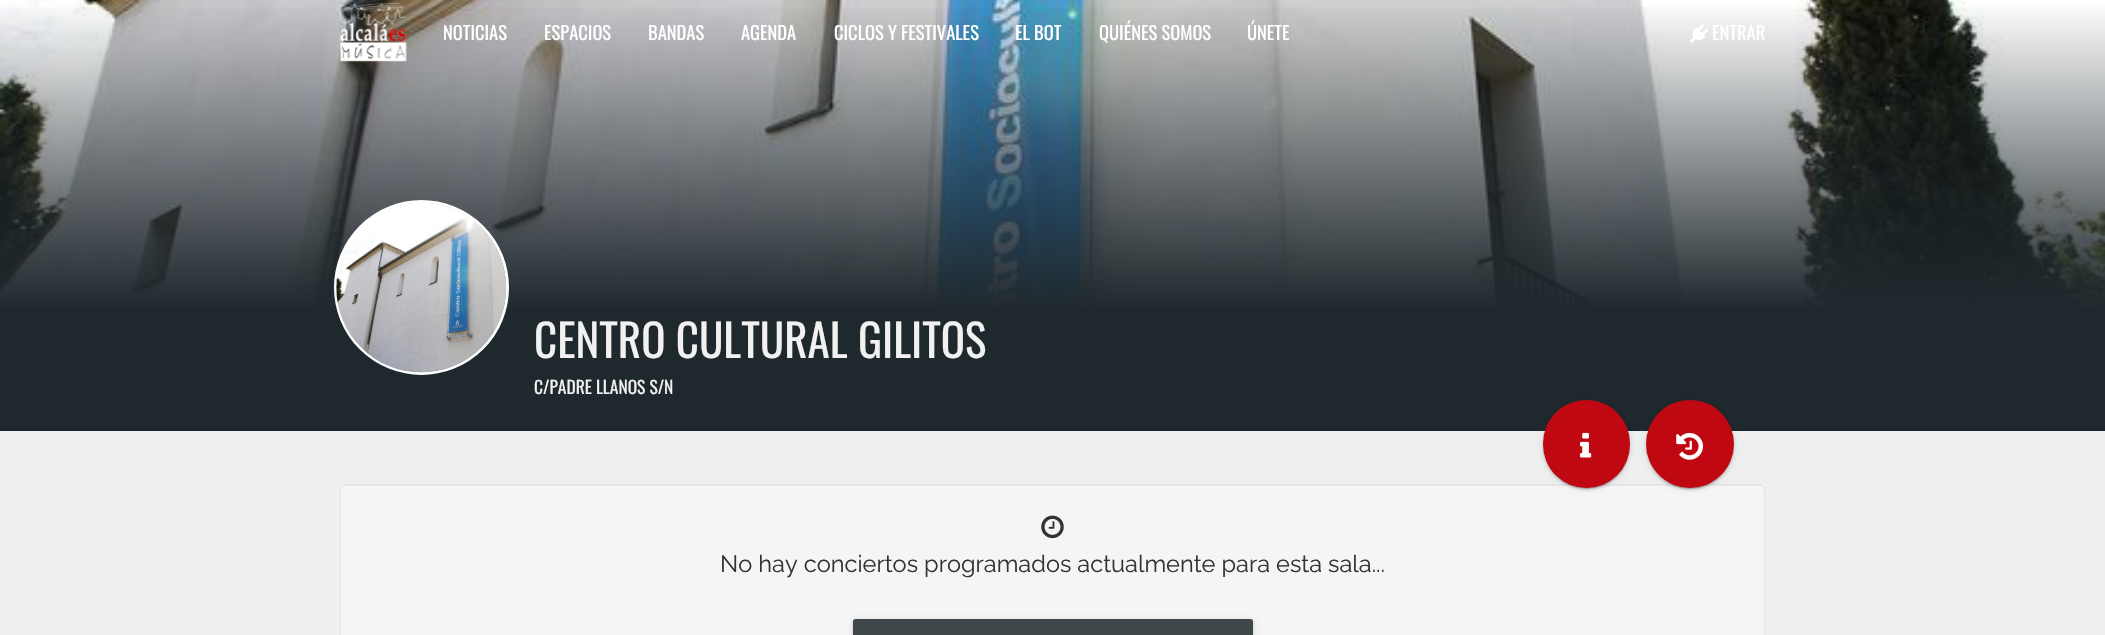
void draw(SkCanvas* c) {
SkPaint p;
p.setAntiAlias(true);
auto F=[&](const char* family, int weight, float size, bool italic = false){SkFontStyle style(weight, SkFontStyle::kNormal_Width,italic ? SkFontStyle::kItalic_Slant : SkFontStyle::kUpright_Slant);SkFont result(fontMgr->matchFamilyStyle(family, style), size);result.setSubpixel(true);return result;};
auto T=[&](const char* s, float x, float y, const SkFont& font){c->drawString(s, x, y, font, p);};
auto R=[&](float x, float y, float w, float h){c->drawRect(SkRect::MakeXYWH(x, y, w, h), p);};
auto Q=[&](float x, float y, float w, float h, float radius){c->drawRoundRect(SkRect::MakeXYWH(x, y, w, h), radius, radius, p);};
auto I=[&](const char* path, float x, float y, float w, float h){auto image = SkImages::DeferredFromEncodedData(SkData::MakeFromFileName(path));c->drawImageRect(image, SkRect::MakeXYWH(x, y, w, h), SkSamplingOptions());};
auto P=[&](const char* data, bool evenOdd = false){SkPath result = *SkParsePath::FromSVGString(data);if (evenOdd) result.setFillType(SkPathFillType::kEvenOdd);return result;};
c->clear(0xffeef0ef);
I("1.png",0,0,2105,308);
{
const SkColor colors[] = {0x001f282d,0xff1f282d,0xff1f282d};
const float stops[] = {0,.99,1};
const SkPoint ends[] = {{1053,0}, {1053,313}};
p.setShader(SkGradientShader::MakeLinear(ends, colors, stops, 3, SkTileMode::kClamp));
p.setAlpha(255);
}
R(0,7,2105,306);
I("2.png",340,3,67,59);
auto f1 = F("Oswald",400,18.5);
p.setShader(nullptr);
p.setColor(0xffffffff);
T("NOTICIAS",443,40,f1);
T("ESPACIOS",544,40,f1);
T("BANDAS",648,40,f1);
T("AGENDA",741,40,f1);
T("CICLOS Y FESTIVALES",834,40,f1);
T("EL BOT",1015,40,f1);
T("QUIÉNES SOMOS",1099,40,f1);
T("ÚNETE",1247,40,f1);
I("3.png",1690,24,19,19);
T("ENTRAR",1712,40,f1);
p.setColor(0xff1f282d);
R(0,313,2105,118);
p.setStroke(true);
p.setStrokeWidth(3);
p.setColor(0xfffdfdfd);
c->drawCircle(421.5,287.5,86,p);
I("4.png",336,203,171,170);
auto f2 = F("Oswald",400,45);
p.setStroke(false);
p.setColor(0xfff1f1f1);
T("CENTRO CULTURAL GILITOS",534,358,f2);
auto f3 = F("Oswald",400,17.5);
T("C/PADRE LLANOS S/N",534,394,f3);
p.setColor(0xfff5f5f5);
Q(340,484,1425,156,5);
p.setColor(0xffe9e9e9);
c->drawPath(P("M345 486h1415c2 0 4 2 4 4v-1c0-2-2-4-4-4h-1415c-2 0-4 2-4 4v1c0-2 2-4 4-4z"),p);
p.setStroke(true);
p.setStrokeWidth(1);
p.setColor(0xffe3e3e3);
c->drawRoundRect(SkRect::MakeXYWH(340.5,484.5,1424,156),4.5,4.5,p);
p.setStroke(false);
p.setColor(0x33000000);
p.setMaskFilter(SkMaskFilter::MakeBlur(kNormal_SkBlurStyle, .5));
c->drawRoundRect(SkRect::MakeXYWH(1545,406,83,83),41.5,41.5,p);
p.setMaskFilter(nullptr);
p.setColor(0x1f000000);
p.setMaskFilter(SkMaskFilter::MakeBlur(kNormal_SkBlurStyle, 3));
c->drawRoundRect(SkRect::MakeXYWH(1543,401,87,88),43.5,43.5,p);
p.setMaskFilter(nullptr);
p.setColor(0x24000000);
p.setMaskFilter(SkMaskFilter::MakeBlur(kNormal_SkBlurStyle, 1));
c->drawRoundRect(SkRect::MakeXYWH(1543,403,87,87),43.5,43.5,p);
p.setMaskFilter(nullptr);
p.setColor(0xffc00812);
Q(1543,400,87,88,43.5);
I("5.png",1580,432,12,26);
p.setColor(0x33000000);
p.setMaskFilter(SkMaskFilter::MakeBlur(kNormal_SkBlurStyle, .5));
c->drawRoundRect(SkRect::MakeXYWH(1649,406,82,83),41,41,p);
p.setMaskFilter(nullptr);
p.setColor(0x1f000000);
p.setMaskFilter(SkMaskFilter::MakeBlur(kNormal_SkBlurStyle, 3));
c->drawRoundRect(SkRect::MakeXYWH(1646,401,88,88),44,44,p);
p.setMaskFilter(nullptr);
p.setColor(0x24000000);
p.setMaskFilter(SkMaskFilter::MakeBlur(kNormal_SkBlurStyle, 1));
c->drawRoundRect(SkRect::MakeXYWH(1646,403,88,87),43.5,43.5,p);
p.setMaskFilter(nullptr);
p.setColor(0xffc00812);
c->drawCircle(1690,444,44,p);
I("6.png",1676,432,27,28);
I("7.png",1041,515,23,24);
auto f4 = F("Raleway",100,23.6);
p.setColor(0xff333333);
T("No hay conciertos programados actualmente para esta sala...",720,572,f4);
p.setColor(0x1f000000);
p.setMaskFilter(SkMaskFilter::MakeBlur(kNormal_SkBlurStyle, 3));
c->drawRoundRect(SkRect::MakeXYWH(853,620,400,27),2.5,2.5,p);
p.setMaskFilter(nullptr);
p.setColor(0x24000000);
p.setMaskFilter(SkMaskFilter::MakeBlur(kNormal_SkBlurStyle, 1));
c->drawRoundRect(SkRect::MakeXYWH(853,621,400,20),2.5,2.5,p);
p.setMaskFilter(nullptr);
p.setColor(0xff40474a);
Q(853,619,400,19,2.5);
}
